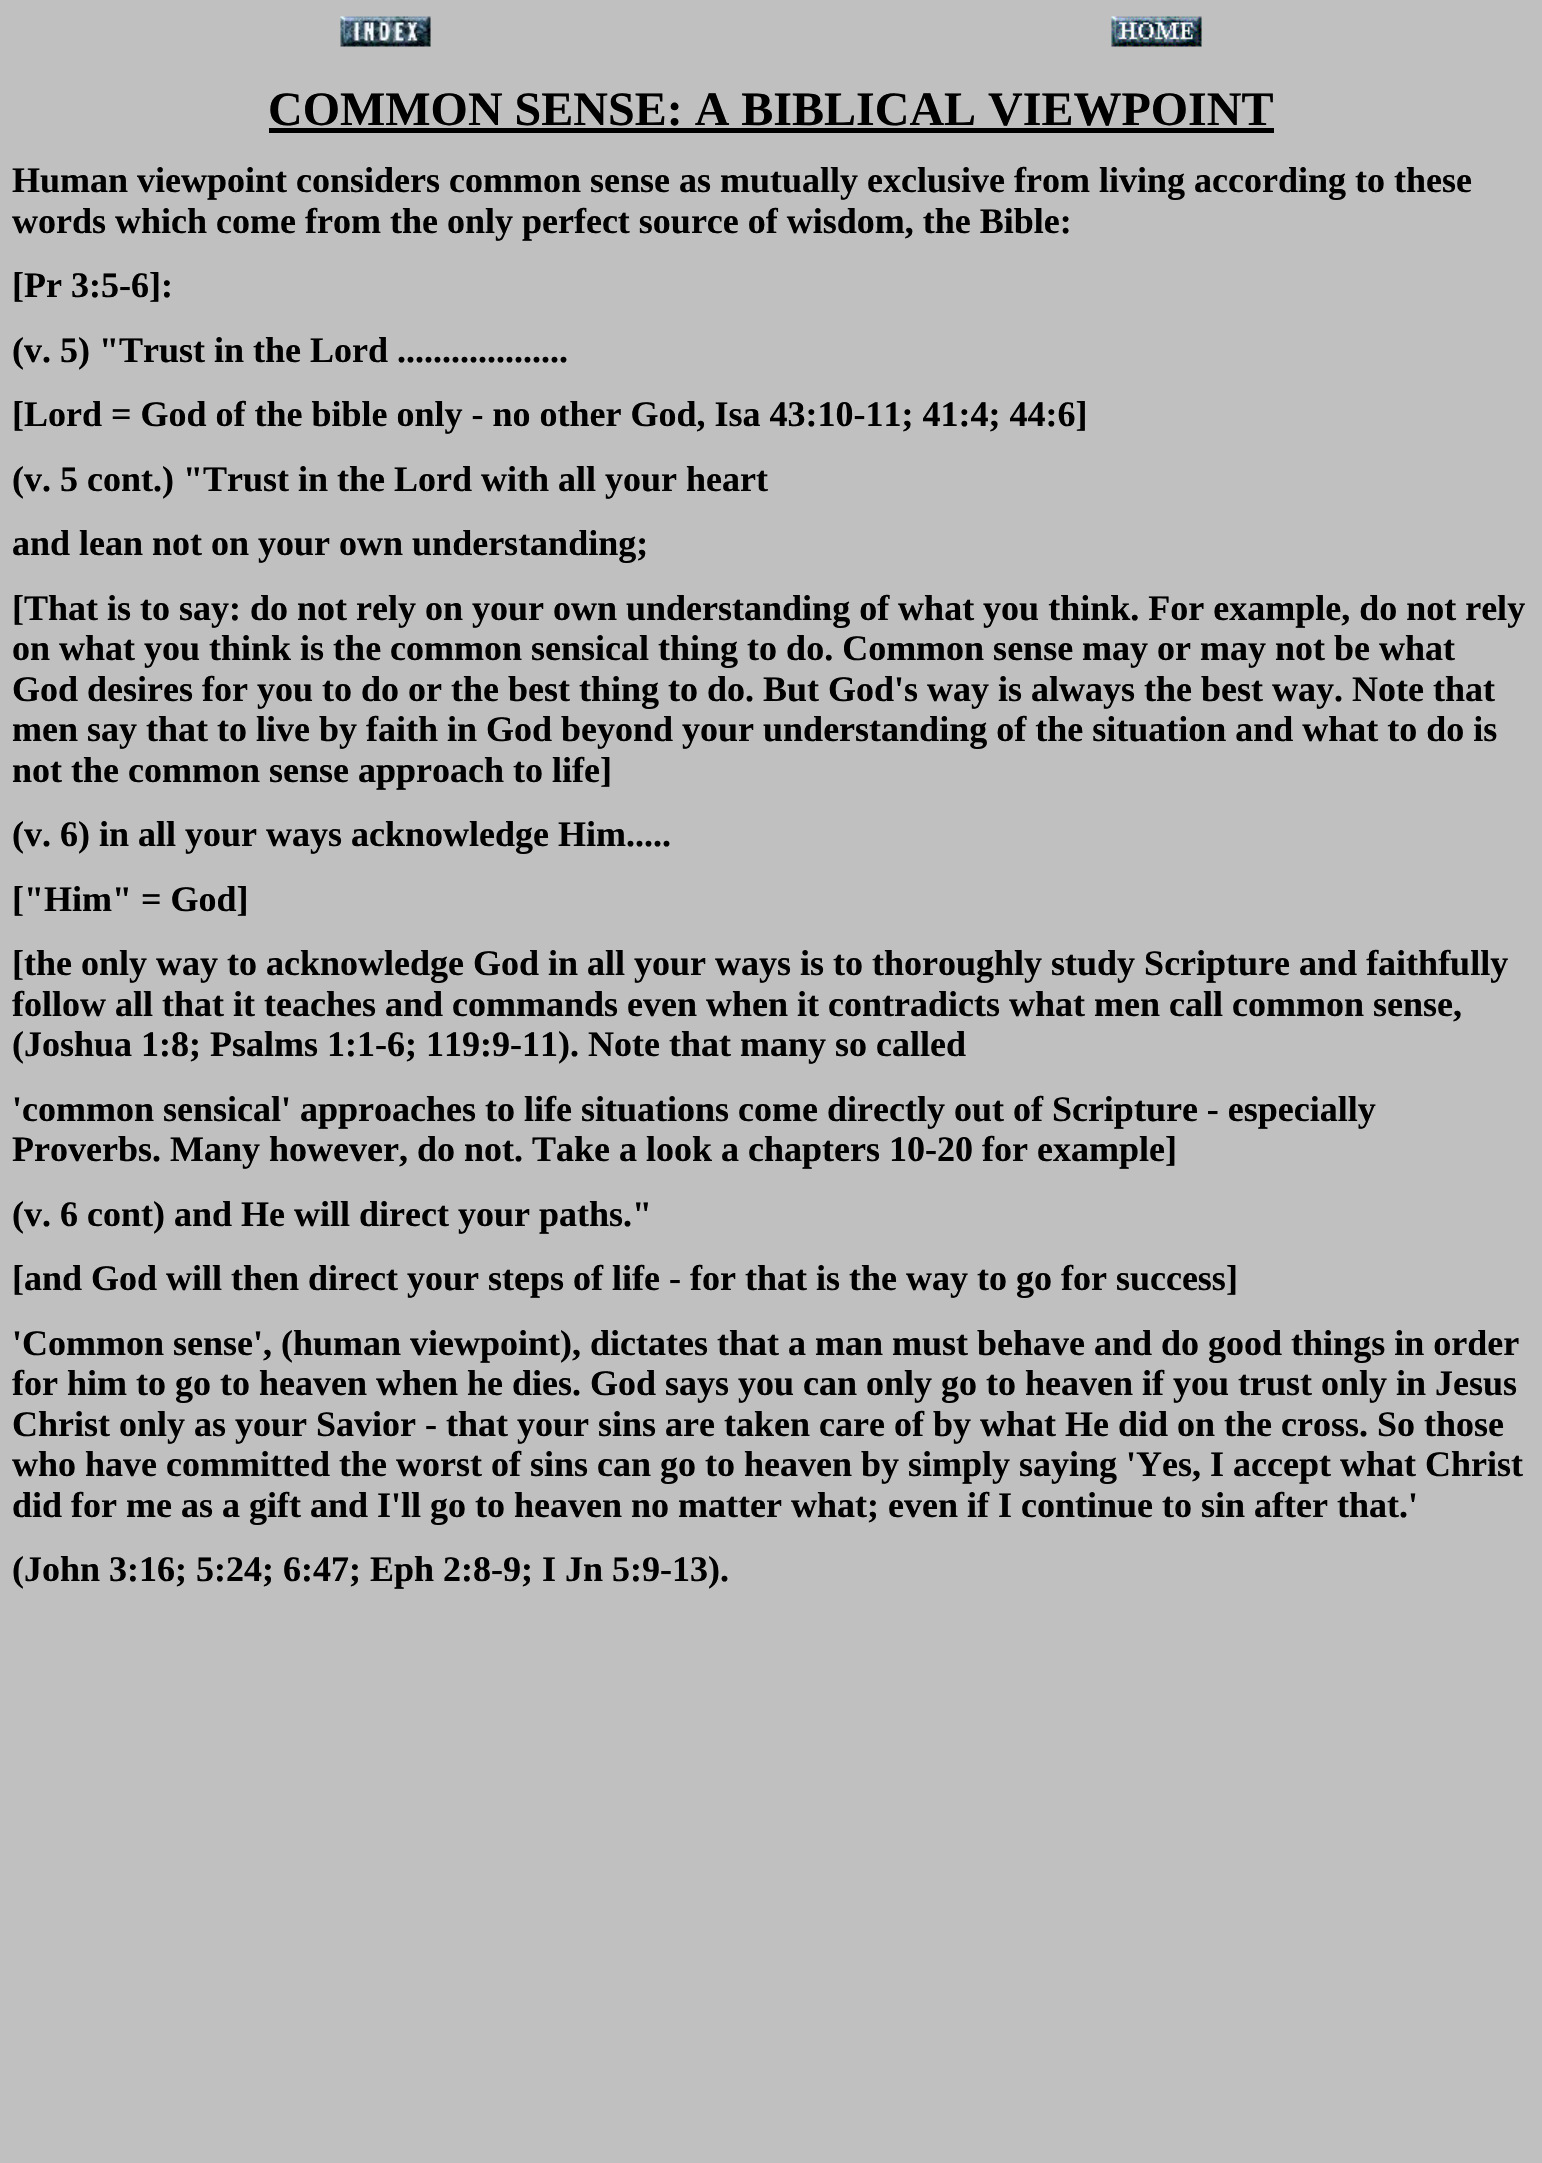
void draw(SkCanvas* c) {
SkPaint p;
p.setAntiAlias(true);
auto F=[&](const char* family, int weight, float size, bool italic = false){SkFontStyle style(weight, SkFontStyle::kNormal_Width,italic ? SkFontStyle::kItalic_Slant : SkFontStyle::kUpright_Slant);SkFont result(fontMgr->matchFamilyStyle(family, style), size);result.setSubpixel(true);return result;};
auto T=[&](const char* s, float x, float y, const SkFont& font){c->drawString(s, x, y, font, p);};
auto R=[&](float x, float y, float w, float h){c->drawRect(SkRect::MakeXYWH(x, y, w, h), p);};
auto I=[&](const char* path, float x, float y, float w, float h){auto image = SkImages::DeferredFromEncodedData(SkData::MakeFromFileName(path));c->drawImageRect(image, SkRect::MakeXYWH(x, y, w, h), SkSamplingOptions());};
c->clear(0xffc0c0c0);
I("1.png",340,16,91,31);
I("2.png",1111,16,91,31);
auto f1 = F("Liberation Serif",700,48);
p.setColor(0xff000000);
T("COMMON SENSE: A BIBLICAL VIEWPOINT",268,125,f1);
R(269,128,1005,5);
auto f2 = F("Liberation Serif",700,36);
T("Human viewpoint considers common sense as mutually exclusive from living according to these",12,192,f2);
T("words which come from the only perfect source of wisdom, the Bible:",12,233,f2);
T("[Pr 3:5-6]:",12,297,f2);
T("(v. 5) \"Trust in the Lord ...................",12,362,f2);
T("[Lord = God of the bible only - no other God, Isa 43:10-11; 41:4; 44:6]",12,426,f2);
T("(v. 5 cont.) \"Trust in the Lord with all your heart",12,491,f2);
T("and lean not on your own understanding;",12,555,f2);
T("[That is to say: do not rely on your own understanding of what you think. For example, do not rely",12,620,f2);
T("on what you think is the common sensical thing to do. Common sense may or may not be what",12,660,f2);
T("God desires for you to do or the best thing to do. But God's way is always the best way. Note that",12,701,f2);
T("men say that to live by faith in God beyond your understanding of the situation and what to do is",12,741,f2);
T("not the common sense approach to life]",12,782,f2);
T("(v. 6) in all your ways acknowledge Him.....",12,846,f2);
T("[\"Him\" = God]",12,911,f2);
T("[the only way to acknowledge God in all your ways is to thoroughly study Scripture and faithfully",12,975,f2);
T("follow all that it teaches and commands even when it contradicts what men call common sense,",12,1016,f2);
T("(Joshua 1:8; Psalms 1:1-6; 119:9-11). Note that many so called",12,1056,f2);
T("'common sensical' approaches to life situations come directly out of Scripture - especially",12,1121,f2);
T("Proverbs. Many however, do not. Take a look a chapters 10-20 for example]",12,1161,f2);
T("(v. 6 cont) and He will direct your paths.\"",12,1226,f2);
T("[and God will then direct your steps of life - for that is the way to go for success]",12,1290,f2);
T("'Common sense', (human viewpoint), dictates that a man must behave and do good things in order",12,1355,f2);
T("for him to go to heaven when he dies. God says you can only go to heaven if you trust only in Jesus",12,1395,f2);
T("Christ only as your Savior - that your sins are taken care of by what He did on the cross. So those",12,1436,f2);
T("who have committed the worst of sins can go to heaven by simply saying 'Yes, I accept what Christ",12,1476,f2);
T("did for me as a gift and I'll go to heaven no matter what; even if I continue to sin after that.'",12,1517,f2);
T("(John 3:16; 5:24; 6:47; Eph 2:8-9; I Jn 5:9-13).",12,1581,f2);
}
